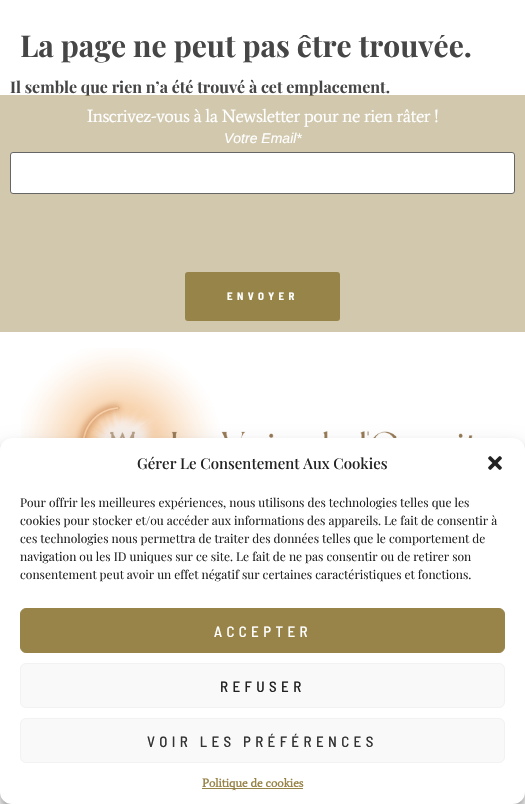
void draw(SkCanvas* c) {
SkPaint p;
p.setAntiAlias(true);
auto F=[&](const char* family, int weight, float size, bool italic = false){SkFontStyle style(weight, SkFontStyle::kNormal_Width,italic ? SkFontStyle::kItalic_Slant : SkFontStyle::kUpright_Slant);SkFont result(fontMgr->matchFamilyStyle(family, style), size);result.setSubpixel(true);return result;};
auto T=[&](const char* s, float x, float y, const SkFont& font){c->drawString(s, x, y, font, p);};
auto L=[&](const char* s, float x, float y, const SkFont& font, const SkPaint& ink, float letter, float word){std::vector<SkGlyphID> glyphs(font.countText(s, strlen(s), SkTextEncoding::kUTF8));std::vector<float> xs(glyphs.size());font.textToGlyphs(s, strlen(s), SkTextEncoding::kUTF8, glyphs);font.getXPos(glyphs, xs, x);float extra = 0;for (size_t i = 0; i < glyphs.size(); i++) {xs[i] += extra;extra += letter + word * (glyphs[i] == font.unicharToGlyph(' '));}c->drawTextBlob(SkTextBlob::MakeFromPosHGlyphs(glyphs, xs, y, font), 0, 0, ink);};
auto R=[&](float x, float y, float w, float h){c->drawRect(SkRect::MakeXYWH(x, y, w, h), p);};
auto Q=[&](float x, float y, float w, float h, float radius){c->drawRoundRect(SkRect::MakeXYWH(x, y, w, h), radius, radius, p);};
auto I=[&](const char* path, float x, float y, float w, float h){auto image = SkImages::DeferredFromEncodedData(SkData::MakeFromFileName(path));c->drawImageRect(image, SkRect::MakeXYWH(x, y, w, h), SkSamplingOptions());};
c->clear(0xffffffff);
auto f1 = F("Playfair Display",700,30);
p.setColor(0xff464646);
T("La page ne peut pas être trouvée.",20,57,f1);
auto f2 = F("Playfair Display",700,16);
T("Il semble que rien n’a été trouvé à cet emplacement.",10,93,f2);
p.setColor(0xffffffff);
R(303,32,143,3);
p.setColor(0x73988449);
R(0,95,525,237);
auto f3 = F("Average",400,18);
p.setColor(0xffffffff);
L("Inscrivez-vous à la Newsletter pour ne rien râter !",87,122,f3,p,-.42,0);
auto f4 = F("Liberation Sans",400,14,true);
T("Votre Email*",224,143,f4);
c->drawRoundRect(SkRect::MakeXYWH(10.5,152.5,504,41),2.5,2.5,p);
p.setStroke(true);
p.setStrokeWidth(1);
p.setColor(0xff666666);
c->drawRoundRect(SkRect::MakeXYWH(10.5,152.5,504,41),2.5,2.5,p);
p.setStroke(false);
p.setColor(0xff978449);
Q(185,272,155,49,3);
auto f5 = F("Barlow Semi Condensed",700,10.75);
p.setColor(0xffffffff);
L("ENVOYER",227,300,f5,p,4.4,0);
I("1.png",21,348,459,90);
p.setColor(0x3b000000);
p.setMaskFilter(SkMaskFilter::MakeBlur(kNormal_SkBlurStyle, 3));
c->drawRoundRect(SkRect::MakeXYWH(0,444,525,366),12,12,p);
p.setMaskFilter(nullptr);
p.setColor(0x30000000);
p.setMaskFilter(SkMaskFilter::MakeBlur(kNormal_SkBlurStyle, 10));
c->drawRoundRect(SkRect::MakeXYWH(0,448,525,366),12,12,p);
p.setMaskFilter(nullptr);
p.setColor(0xffffffff);
Q(0,438,525,366,12);
auto f6 = F("Playfair Display",500,15);
p.setColor(0xff222222);
T("Gérer Le Consentement Aux Cookies",137,469,f6);
I("2.png",488,456,14,14);
auto f7 = F("Playfair Display",400,12);
T("Pour offrir les meilleures expériences, nous utilisons des technologies telles que les",20,507,f7);
T("cookies pour stocker et/ou accéder aux informations des appareils. Le fait de consentir à",20,525,f7);
T("ces technologies nous permettra de traiter des données telles que le comportement de",20,543,f7);
T("navigation ou les ID uniques sur ce site. Le fait de ne pas consentir ou de retirer son",20,561,f7);
T("consentement peut avoir un effet négatif sur certaines caractéristiques et fonctions.",20,579,f7);
p.setColor(0xff988449);
c->drawRoundRect(SkRect::MakeXYWH(20.5,608.5,484,44),5.5,5.5,p);
p.setStroke(true);
c->drawRoundRect(SkRect::MakeXYWH(20.5,608.5,484,44),5.5,5.5,p);
auto f8 = F("Barlow Semi Condensed",500,15);
p.setStroke(false);
p.setColor(0xffffffff);
L("ACCEPTER",214,637,f8,p,4.4,0);
p.setColor(0xfff9f9f9);
c->drawRoundRect(SkRect::MakeXYWH(20.5,663.5,484,44),5.5,5.5,p);
p.setStroke(true);
p.setColor(0xfff2f2f2);
c->drawRoundRect(SkRect::MakeXYWH(20.5,663.5,484,44),5.5,5.5,p);
p.setStroke(false);
p.setColor(0xff222222);
L("REFUSER",220,692,f8,p,4.4,0);
p.setColor(0xfff9f9f9);
c->drawRoundRect(SkRect::MakeXYWH(20.5,718.5,484,44),5.5,5.5,p);
p.setStroke(true);
p.setColor(0xfff2f2f2);
c->drawRoundRect(SkRect::MakeXYWH(20.5,718.5,484,44),5.5,5.5,p);
p.setStroke(false);
p.setColor(0xff333333);
L("VOIR LES PRÉFÉRENCES",147,747,f8,p,4.4,0);
p.setColor(0xff988449);
R(202,788,101,1);
auto f9 = F("Average",700,12);
T("Politique de cookies",202,787,f9);
}
